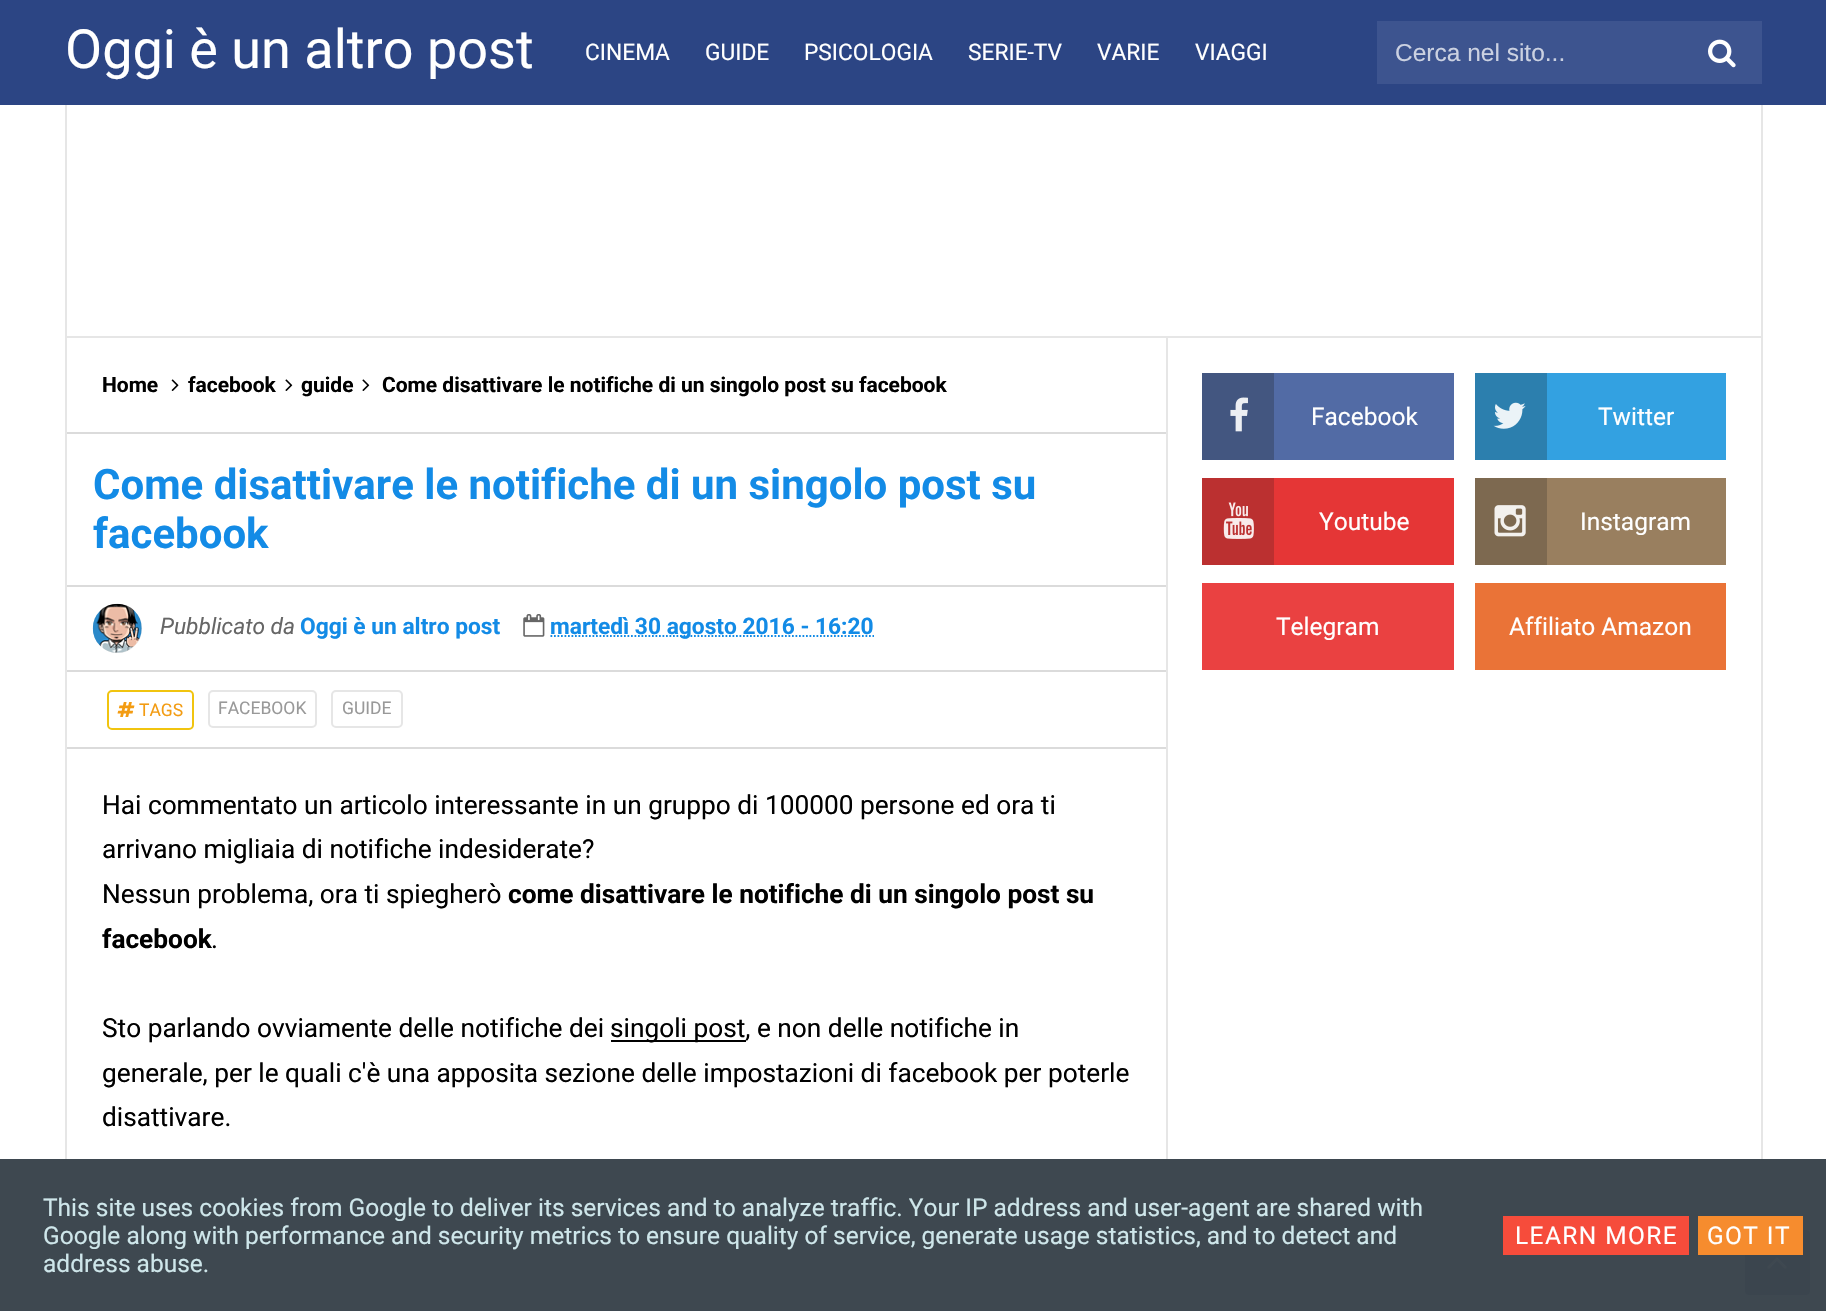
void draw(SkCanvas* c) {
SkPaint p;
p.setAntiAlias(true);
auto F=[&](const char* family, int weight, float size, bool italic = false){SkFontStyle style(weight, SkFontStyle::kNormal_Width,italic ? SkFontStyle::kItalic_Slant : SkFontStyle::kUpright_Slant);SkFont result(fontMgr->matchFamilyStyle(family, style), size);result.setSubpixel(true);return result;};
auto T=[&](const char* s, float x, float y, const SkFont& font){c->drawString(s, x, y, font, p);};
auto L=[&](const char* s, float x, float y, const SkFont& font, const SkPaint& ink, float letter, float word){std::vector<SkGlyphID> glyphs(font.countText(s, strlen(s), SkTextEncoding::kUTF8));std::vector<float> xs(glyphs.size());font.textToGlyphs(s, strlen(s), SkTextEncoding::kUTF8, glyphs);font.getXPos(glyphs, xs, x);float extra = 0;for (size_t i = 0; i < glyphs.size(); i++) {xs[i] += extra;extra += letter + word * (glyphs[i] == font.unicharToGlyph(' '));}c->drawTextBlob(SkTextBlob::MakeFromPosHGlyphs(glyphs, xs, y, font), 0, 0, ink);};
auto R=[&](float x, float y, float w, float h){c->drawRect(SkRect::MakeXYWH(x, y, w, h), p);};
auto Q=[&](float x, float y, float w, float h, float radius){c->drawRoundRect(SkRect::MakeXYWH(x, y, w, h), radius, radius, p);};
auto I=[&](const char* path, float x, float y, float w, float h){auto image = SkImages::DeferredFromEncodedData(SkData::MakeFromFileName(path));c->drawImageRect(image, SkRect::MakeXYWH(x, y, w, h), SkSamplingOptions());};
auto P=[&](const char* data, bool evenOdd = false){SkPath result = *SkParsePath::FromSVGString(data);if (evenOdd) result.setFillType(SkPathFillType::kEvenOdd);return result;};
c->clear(0xffffffff);
p.setColor(0xff3e4850);
R(0,1159,1826,152);
p.setColor(0xff2c4584);
R(0,0,1826,105);
auto f1 = F("Roboto",400,54);
p.setColor(0xffffffff);
T("Oggi è un altro post",65,68,f1);
auto f2 = F("Roboto",400,22.75);
T("CINEMA",585,60,f2);
T("GUIDE",705,60,f2);
T("PSICOLOGIA",804,60,f2);
T("SERIE-TV",968,60,f2);
T("VARIE",1097,60,f2);
T("VIAGGI",1195,60,f2);
p.setColor(0xff3d548f);
R(1377,21,385,63);
auto f3 = F("Liberation Sans",400,24.5);
p.setColor(0xffcbd1e1);
T("Cerca nel sito...",1395,61,f3);
I("1.png",1708,39,28,29);
p.setColor(0xffe6e6e6);
R(1761,105,2,1054);
R(65,105,2,1054);
R(67,336,1694,2);
R(1166,338,2,821);
p.setColor(0xffdbdbdb);
R(67,432,1099,2);
auto f4 = F("Roboto",700,21);
p.setColor(0xff000000);
T("Home",102,392,f4);
I("2.png",171,379,8,12);
T("facebook",188,392,f4);
I("3.png",285,379,8,12);
T("guide",301,392,f4);
I("3.png",362,379,8,12);
T("Come disattivare le notifiche di un singolo post su facebook",382,392,f4);
auto f5 = F("Roboto",700,42);
p.setColor(0xff138be6);
T("Come disattivare le notifiche di un singolo post su",93,499,f5);
T("facebook",93,548,f5);
p.setColor(0xffdbdbdb);
R(67,585,1099,2);
R(67,670,1099,2);
p.setColor(0xffe6e6e6);
c->drawCircle(117.5,628.5,24.5,p);
I("4.png",92,603,50,50);
auto f6 = F("Roboto",400,22.75,true);
p.setColor(0xff666666);
T("Pubblicato da",160,634,f6);
auto f7 = F("Roboto",700,22.75);
p.setColor(0xff138be6);
T("Oggi è un altro post",300,634,f7);
I("5.png",523,614,22,23);
p.setStroke(true);
p.setStrokeWidth(1.8);
p.setPathEffect(SkDashPathEffect::Make({{1.75f,1.75f}}, 0));
c->drawPath(P("M550.5 636h323.5"),p);
p.setPathEffect(nullptr);
p.setStroke(false);
T("martedì 30 agosto 2016 - 16:20",550,634,f7);
p.setColor(0xffdbdbdb);
R(67,747,1099,2);
p.setStroke(true);
p.setStrokeWidth(2);
p.setColor(0xfff1c40f);
c->drawRoundRect(SkRect::MakeXYWH(108,691,85,38),4,4,p);
I("6.png",117,702,18,15);
auto f8 = F("Roboto",400,17.5);
p.setStroke(false);
p.setColor(0xfff39c12);
T("TAGS",139,716,f8);
p.setStroke(true);
p.setColor(0xffe6e6e6);
c->drawRoundRect(SkRect::MakeXYWH(209,691,107,36),4,4,p);
p.setStroke(false);
p.setColor(0xff999999);
T("FACEBOOK",218,714,f8);
p.setStroke(true);
p.setColor(0xffe6e6e6);
c->drawRoundRect(SkRect::MakeXYWH(332,691,70,36),4,4,p);
p.setStroke(false);
p.setColor(0xff999999);
T("GUIDE",342,714,f8);
auto f9 = F("Roboto",400,26.25);
p.setColor(0xff000000);
T("Hai commentato un articolo interessante in un gruppo di 100000 persone ed ora ti",102,814,f9);
T("arrivano migliaia di notifiche indesiderate?",102,858,f9);
T("Nessun problema, ora ti spiegherò",102,903,f9);
auto f10 = F("Roboto",700,26.25);
T("come disattivare le notifiche di un singolo post su",508,903,f10);
T("facebook",102,948,f10);
T(".",211,948,f9);
T("Sto parlando ovviamente delle notifiche dei",102,1037,f9);
R(611,1040,135,2);
T("singoli post, e non delle notifiche in",610,1037,f9);
T("generale, per le quali c'è una apposita sezione delle impostazioni di facebook per poterle",102,1082,f9);
T("disattivare.",102,1126,f9);
p.setColor(0xff526ba5);
R(1274,373,180,87);
p.setColor(0xff435680);
R(1202,373,72,87);
I("7.png",1230,397,18,35);
auto f11 = F("Roboto",400,24.5);
p.setColor(0xffffffff);
T("Facebook",1311,425,f11);
p.setColor(0xff33a1e1);
R(1547,373,179,87);
p.setColor(0xff2c7fae);
R(1475,373,72,87);
I("8.png",1493,402,33,27);
p.setColor(0xffffffff);
T("Twitter",1598,425,f11);
p.setColor(0xffe53636);
R(1274,478,180,87);
p.setColor(0xffbb3030);
R(1202,478,72,87);
I("9.png",1223,502,31,37);
p.setColor(0xffffffff);
T("Youtube",1319,530,f11);
p.setColor(0xff997f5f);
R(1547,478,179,87);
p.setColor(0xff7d6950);
R(1475,478,72,87);
I("10.png",1494,505,32,32);
p.setColor(0xffffffff);
T("Instagram",1580,530,f11);
p.setColor(0xffea4141);
R(1202,583,252,87);
p.setColor(0xffffffff);
T("Telegram",1276,635,f11);
p.setColor(0xffea7337);
R(1475,583,251,87);
p.setColor(0xffffffff);
T("Affiliato Amazon",1509,635,f11);
p.setColor(0xffcee6ea);
T("This site uses cookies from Google to deliver its services and to analyze traffic. Your IP address and user-agent are shared with",43,1216,f11);
T("Google along with performance and security metrics to ensure quality of service, generate usage statistics, and to detect and",43,1244,f11);
T("address abuse.",43,1272,f11);
p.setColor(0xfff64c3b);
R(1503,1216,186,39);
p.setColor(0xffffffff);
L("LEARN MORE",1515,1244,f11,p,1.4,0);
p.setColor(0xff3b454e);
Q(1745,1230,65,65,4);
p.setColor(0xfff68c2e);
R(1698,1216,105,39);
p.setColor(0xffffffff);
L("GOT IT",1707,1244,f11,p,1.4,0);
I("11.png",1767,1257,20,12);
}
